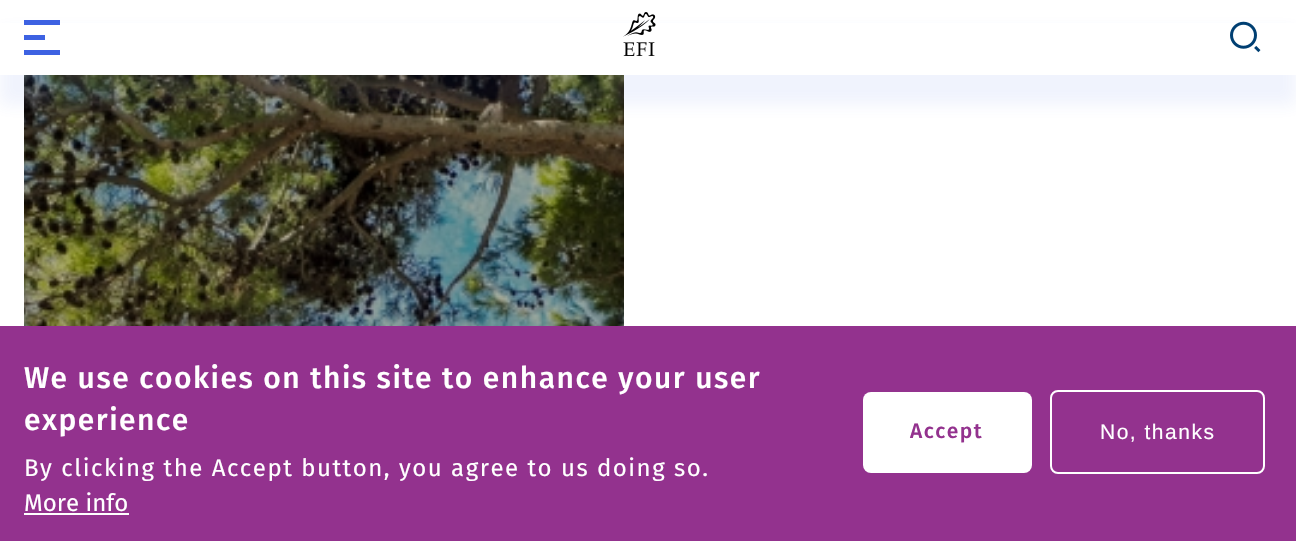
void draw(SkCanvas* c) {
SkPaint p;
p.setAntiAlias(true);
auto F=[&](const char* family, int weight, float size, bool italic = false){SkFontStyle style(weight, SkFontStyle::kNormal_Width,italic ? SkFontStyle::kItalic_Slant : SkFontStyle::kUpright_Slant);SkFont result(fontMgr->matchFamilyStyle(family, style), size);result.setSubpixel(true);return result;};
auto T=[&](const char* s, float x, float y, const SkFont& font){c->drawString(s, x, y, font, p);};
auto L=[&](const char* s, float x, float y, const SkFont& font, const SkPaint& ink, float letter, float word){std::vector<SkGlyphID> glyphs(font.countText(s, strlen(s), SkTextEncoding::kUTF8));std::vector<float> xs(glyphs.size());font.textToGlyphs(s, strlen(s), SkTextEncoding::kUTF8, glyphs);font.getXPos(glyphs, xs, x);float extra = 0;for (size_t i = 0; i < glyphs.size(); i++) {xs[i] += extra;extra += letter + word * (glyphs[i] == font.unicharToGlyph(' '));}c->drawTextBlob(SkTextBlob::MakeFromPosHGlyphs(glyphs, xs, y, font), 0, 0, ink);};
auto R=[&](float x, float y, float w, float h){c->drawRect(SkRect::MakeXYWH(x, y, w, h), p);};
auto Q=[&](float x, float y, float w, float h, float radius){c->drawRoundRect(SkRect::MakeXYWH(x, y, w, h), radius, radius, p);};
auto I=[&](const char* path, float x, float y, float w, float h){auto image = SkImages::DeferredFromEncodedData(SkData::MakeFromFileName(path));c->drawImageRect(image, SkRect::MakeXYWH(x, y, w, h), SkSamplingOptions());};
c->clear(0xffffffff);
I("3.png",24,75,600,251);
p.setColor(0x143d62e2);
p.setMaskFilter(SkMaskFilter::MakeBlur(kNormal_SkBlurStyle, 7.5));
c->drawRect(SkRect::MakeXYWH(0,30,1296,75),p);
p.setMaskFilter(nullptr);
p.setColor(0xffffffff);
R(0,23,1296,52);
p.setColor(0xff3d62e2);
R(24,35,21,5);
R(24,20,36,5);
R(24,50,36,5);
I("1.png",623,12,33,44);
I("2.png",1230,21,31,32);
p.setColor(0xff93328e);
R(0,326,1296,215);
auto f1 = F("Fira Sans",500,30);
p.setColor(0xffffffff);
L("We use cookies on this site to enhance your user",24,388,f1,p,1.5,0);
L("experience",24,430,f1,p,1.5,0);
auto f2 = F("Fira Sans",400,24);
L("By clicking the Accept button, you agree to us doing so.",24,476,f2,p,1.5,0);
T("More info",24,511,f2);
R(24,513,105,2);
Q(863,392,169,81,8);
auto f3 = F("Fira Sans",500,21);
p.setColor(0xff93328e);
L("Accept",910,438,f3,p,1.5,0);
p.setStroke(true);
p.setStrokeWidth(2);
p.setColor(0xffffffff);
c->drawRoundRect(SkRect::MakeXYWH(1051,391,213,82),7,7,p);
auto f4 = F("Liberation Sans",400,21);
p.setStroke(false);
L("No, thanks",1100,439,f4,p,1.5,0);
}
